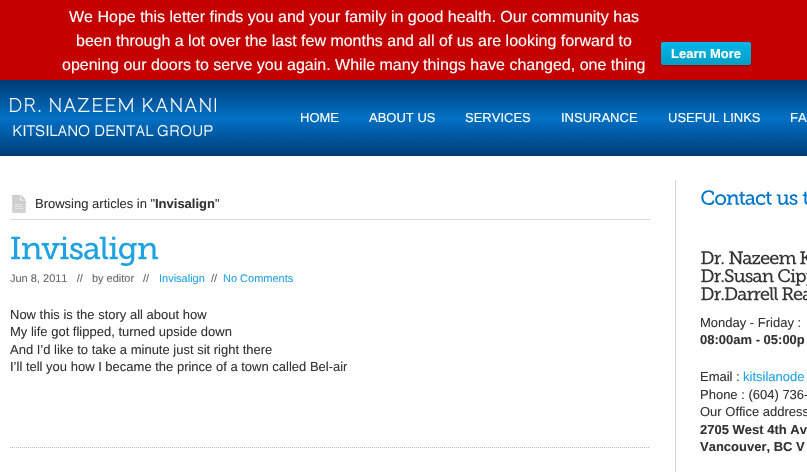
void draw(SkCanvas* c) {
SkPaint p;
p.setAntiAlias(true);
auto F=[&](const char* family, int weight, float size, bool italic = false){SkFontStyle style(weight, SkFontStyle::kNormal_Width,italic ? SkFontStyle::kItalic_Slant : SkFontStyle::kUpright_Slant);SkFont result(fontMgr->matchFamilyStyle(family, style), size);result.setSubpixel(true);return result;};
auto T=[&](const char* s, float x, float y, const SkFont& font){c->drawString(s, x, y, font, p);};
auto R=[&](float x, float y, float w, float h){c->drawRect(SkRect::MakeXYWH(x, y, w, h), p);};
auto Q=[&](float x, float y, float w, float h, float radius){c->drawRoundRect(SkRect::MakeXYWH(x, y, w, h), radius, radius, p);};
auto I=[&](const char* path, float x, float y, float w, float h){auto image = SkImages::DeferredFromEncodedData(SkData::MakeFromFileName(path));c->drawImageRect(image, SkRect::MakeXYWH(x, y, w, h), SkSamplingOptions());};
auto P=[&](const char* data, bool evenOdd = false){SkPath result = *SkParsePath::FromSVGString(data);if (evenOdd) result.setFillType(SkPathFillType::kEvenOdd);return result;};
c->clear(0xffffffff);
p.setColor(0xffc40000);
R(0,0,807,80);
auto f1 = F("Liberation Sans",400,16);
p.setColor(0xffffffff);
T("We Hope this letter finds you and your family in good health. Our community has",69,22,f1);
T("been through a lot over the last few months and all of us are looking forward to",76,46,f1);
T("opening our doors to serve you again. While many things have changed, one thing",62,70,f1);
p.setColor(0x33000000);
p.setMaskFilter(SkMaskFilter::MakeBlur(kNormal_SkBlurStyle, 1));
c->drawRoundRect(SkRect::MakeXYWH(661,43,90,23),2,2,p);
p.setMaskFilter(nullptr);
{
const SkColor colors[] = {0xff00b7ea,0xff009ec3};
const float stops[] = {0,1};
const SkPoint ends[] = {{706,42}, {706,65}};
p.setShader(SkGradientShader::MakeLinear(ends, colors, stops, 2, SkTileMode::kClamp));
p.setAlpha(255);
}
Q(661,42,90,23,2);
auto f2 = F("Liberation Sans",700,13);
p.setShader(nullptr);
p.setColor(0xffffffff);
T("Learn More",671,58,f2);
I("1.png",0,80,807,76);
I("2.png",9,97,207,40);
auto f3 = F("Liberation Sans",400,13);
T("HOME",300,122,f3);
T("ABOUT US",369,122,f3);
T("SERVICES",465,122,f3);
T("INSURANCE",561,122,f3);
T("USEFUL LINKS",668,122,f3);
T("FA",790,122,f3);
p.setColor(0xffd5d4d2);
R(675,180,1,292);
I("3.png",12,195,14,18);
p.setColor(0xffdddddd);
R(10,219,640,1);
p.setColor(0xff333333);
T("Browsing articles in \"",35,208,f3);
T("Invisalign",155,208,f2);
T("\"",215,208,f3);
p.setStroke(true);
p.setStrokeWidth(1);
p.setColor(0xffbbbbbb);
p.setPathEffect(SkDashPathEffect::Make({{1,1}}, 0));
c->drawPath(P("M10 447.5h640"),p);
p.setPathEffect(nullptr);
I("4.png",11,236,148,30);
auto f4 = F("Liberation Sans",400,11);
p.setStroke(false);
p.setColor(0xff666666);
T("Jun 8, 2011   //   by editor",10,282,f4);
T("//",143,282,f4);
p.setColor(0xff1fa2e1);
T("Invisalign",159,282,f4);
p.setColor(0xff666666);
T("//",211,282,f4);
p.setColor(0xff1fa2e1);
T("No Comments",223,282,f4);
p.setColor(0xff333333);
T("Now this is the story all about how",10,319,f3);
T("My life got flipped, turned upside down",10,336,f3);
T("And I’d like to take a minute just sit right there",10,354,f3);
T("I’ll tell you how I became the prince of a town called Bel-air",10,371,f3);
I("5.png",701,190,71,15);
I("6.png",776,194,22,11);
I("7.png",802,191,5,14);
I("8.png",701,251,23,14);
I("9.png",729,251,68,14);
I("10.png",800,251,7,14);
I("11.png",701,269,73,14);
I("12.png",778,269,29,17);
I("13.png",701,287,78,14);
I("14.png",782,287,25,14);
T("Monday - Friday :",700,327,f3);
T("08:00am - 05:00p",700,344,f2);
T("Email :",700,381,f3);
p.setColor(0xff1fa2e1);
T("kitsilanode",743,381,f3);
p.setColor(0xff333333);
T("Phone : (604) 736-",700,399,f3);
T("Our Office address",700,416,f3);
T("2705 West 4th Av",700,434,f2);
T("Vancouver, BC V",700,451,f2);
}
